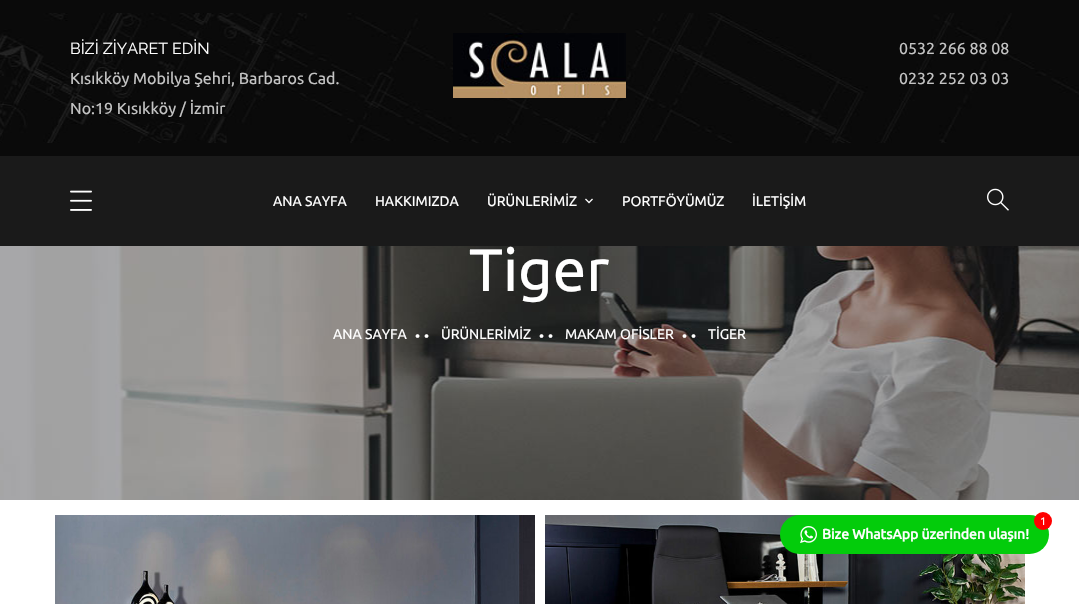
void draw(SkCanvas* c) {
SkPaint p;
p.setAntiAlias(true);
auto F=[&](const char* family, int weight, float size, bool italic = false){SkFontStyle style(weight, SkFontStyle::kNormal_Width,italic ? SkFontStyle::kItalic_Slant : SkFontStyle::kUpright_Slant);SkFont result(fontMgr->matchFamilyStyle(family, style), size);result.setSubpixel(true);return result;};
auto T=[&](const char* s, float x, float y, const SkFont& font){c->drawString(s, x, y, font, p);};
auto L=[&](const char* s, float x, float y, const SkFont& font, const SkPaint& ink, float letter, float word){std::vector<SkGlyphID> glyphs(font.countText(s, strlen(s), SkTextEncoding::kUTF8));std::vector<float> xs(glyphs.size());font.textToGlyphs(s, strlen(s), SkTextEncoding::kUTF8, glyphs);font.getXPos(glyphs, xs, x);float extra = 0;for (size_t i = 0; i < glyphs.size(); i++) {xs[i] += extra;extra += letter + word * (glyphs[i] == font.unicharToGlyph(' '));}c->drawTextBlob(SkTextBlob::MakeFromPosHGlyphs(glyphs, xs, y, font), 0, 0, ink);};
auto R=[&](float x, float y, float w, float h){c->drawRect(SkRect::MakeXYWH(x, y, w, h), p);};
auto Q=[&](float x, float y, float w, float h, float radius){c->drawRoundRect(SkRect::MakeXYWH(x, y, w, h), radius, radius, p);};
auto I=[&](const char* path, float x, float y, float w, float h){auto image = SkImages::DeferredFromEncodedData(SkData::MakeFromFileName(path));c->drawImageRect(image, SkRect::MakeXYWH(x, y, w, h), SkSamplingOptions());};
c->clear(0xffffffff);
p.setColor(0xff0a0a0a);
R(0,0,1079,156);
I("1.png",0,13,1079,130);
auto f1 = F("Raleway",400,16);
p.setColor(0xffffffff);
T("BİZİ ZİYARET EDİN",70,54,f1);
auto f2 = F("Ubuntu",400,16);
p.setColor(0xffc4c4c4);
T("Kısıkköy Mobilya Şehri, Barbaros Cad.",70,84,f2);
T("No:19 Kısıkköy / İzmir",70,114,f2);
I("2.png",453,33,173,65);
T("0532 266 88 08",899,54,f2);
T("0232 252 03 03",899,84,f2);
p.setColor(0xff1a1a1a);
R(0,156,1079,90);
I("3.png",70,190,22,21);
auto f3 = F("Ubuntu",400,14);
p.setColor(0xffffffff);
T("ANA SAYFA",273,206,f3);
T("HAKKIMIZDA",375,206,f3);
T("ÜRÜNLERİMİZ",487,206,f3);
I("4.png",585,198,8,6);
T("PORTFÖYÜMÜZ",622,206,f3);
T("İLETİŞİM",752,206,f3);
I("5.png",987,188,22,23);
I("6.png",0,246,1079,254);
auto f4 = F("Ubuntu",400,60);
T("Tiger",469,291,f4);
T("ANA SAYFA",333,339,f3);
L("••",415,341,f3,p,4,0);
T("ÜRÜNLERİMİZ",441,339,f3);
L("••",539,341,f3,p,4,0);
T("MAKAM OFİSLER",565,339,f3);
L("••",682,341,f3,p,4,0);
T("TİGER",708,339,f3);
I("7.png",55,515,480,89);
I("8.png",545,515,480,89);
p.setColor(0xff03cc0b);
Q(780,515,269,39,19.5);
p.setColor(0xffff0000);
c->drawCircle(1043,521,9,p);
auto f5 = F("Ubuntu",400,11);
p.setColor(0xffffffff);
T("1",1040,525,f5);
I("9.png",800,526,17,17);
auto f6 = F("Ubuntu",700,14);
T("Bize WhatsApp üzerinden ulaşın!",822,539,f6);
}
